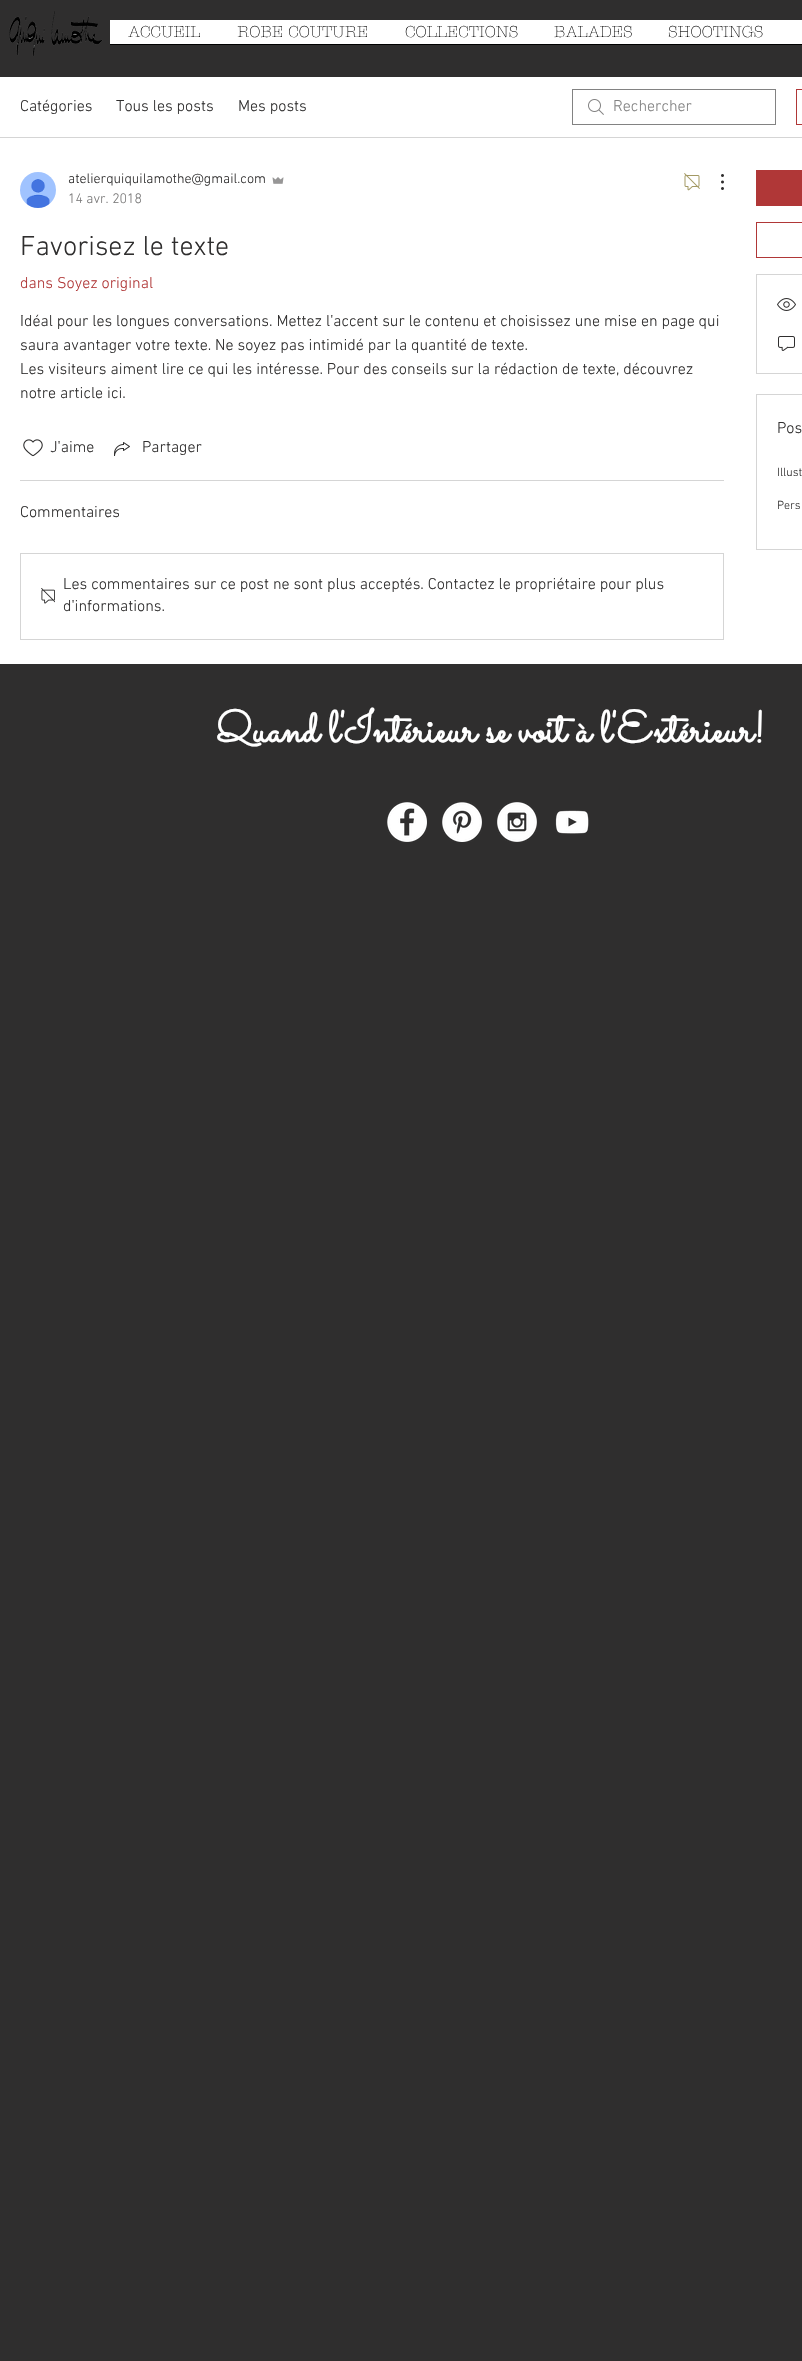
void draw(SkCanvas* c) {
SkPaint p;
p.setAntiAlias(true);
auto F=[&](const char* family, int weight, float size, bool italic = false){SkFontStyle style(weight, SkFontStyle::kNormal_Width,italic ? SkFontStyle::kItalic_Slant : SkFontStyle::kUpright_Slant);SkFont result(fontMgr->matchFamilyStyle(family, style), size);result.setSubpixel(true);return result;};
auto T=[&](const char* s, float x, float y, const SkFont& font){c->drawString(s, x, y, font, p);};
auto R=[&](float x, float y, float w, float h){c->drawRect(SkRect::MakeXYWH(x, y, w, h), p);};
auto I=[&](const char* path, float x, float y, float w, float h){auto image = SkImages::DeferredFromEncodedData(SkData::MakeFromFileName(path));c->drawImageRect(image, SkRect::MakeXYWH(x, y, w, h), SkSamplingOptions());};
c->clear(0xff2f2e2e);
I("1.png",9,11,94,45);
p.setColor(0xffffffff);
R(110,20,692,24);
p.setColor(0xff000000);
R(110,44,692,1);
auto f1 = F("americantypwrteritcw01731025",300,16);
T("ACCUEIL",128,37,f1);
T("ROBE COUTURE",237,37,f1);
T("COLLECTIONS",405,37,f1);
T("BALADES",554,37,f1);
T("SHOOTINGS",668,37,f1);
p.setColor(0xffffffff);
R(0,77,802,587);
p.setColor(0xffd5d5d5);
R(0,137,802,1);
auto f2 = F("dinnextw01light",300,16);
p.setColor(0xff2f2e2e);
T("Catégories",20,111,f2);
T("Tous les posts",116,111,f2);
T("Mes posts",238,111,f2);
I("2.png",588,99,16,16);
p.setStroke(true);
p.setStrokeWidth(1);
p.setColor(0xff828282);
c->drawRect(SkRect::MakeXYWH(572.5,89.5,203,35),p);
p.setStroke(false);
T("Rechercher",613,111,f2);
p.setStroke(true);
p.setColor(0xffb03737);
c->drawRect(SkRect::MakeXYWH(796.5,89.5,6,35),p);
I("3.png",20,172,36,36);
auto f3 = F("dinnextw01light",300,14);
p.setStroke(false);
p.setColor(0xff2f2e2e);
T("atelierquiquilamothe@gmail.com",68,183,f3);
I("4.png",272,177,12,7);
p.setColor(0xff7a7979);
T("14 avr. 2018",68,203,f3);
I("5.png",684,173,16,18);
I("6.png",721,174,3,16);
auto f4 = F("dinnextw01light",300,28);
p.setColor(0xff2f2e2e);
T("Favorisez le texte",20,255,f4);
p.setColor(0xffb03737);
T("dans Soyez original",20,288,f2);
p.setColor(0xff2f2e2e);
T("Idéal pour les longues conversations. Mettez l'accent sur le contenu et choisissez une mise en page qui",20,326,f2);
T("saura avantager votre texte. Ne soyez pas intimidé par la quantité de texte.",20,350,f2);
T("Les visiteurs aiment lire ce qui les intéresse. Pour des conseils sur la rédaction de texte, découvrez",20,374,f2);
T("notre article ici.",20,398,f2);
I("7.png",23,439,20,18);
T("J'aime",50,452,f2);
I("8.png",114,442,16,14);
T("Partager",142,452,f2);
p.setColor(0xffd5d5d5);
R(20,480,704,1);
p.setColor(0xff2f2e2e);
T("Commentaires",20,517,f2);
p.setStroke(true);
p.setColor(0xffd5d5d5);
c->drawRect(SkRect::MakeXYWH(20.5,553.5,703,86),p);
I("9.png",41,588,14,16);
p.setStroke(false);
p.setColor(0xff2f2e2e);
T("Les commentaires sur ce post ne sont plus acceptés. Contactez le propriétaire pour plus",63,589,f2);
T("d'informations.",63,611,f2);
p.setColor(0xffb03737);
R(756,170,46,36);
p.setStroke(true);
c->drawRect(SkRect::MakeXYWH(756.5,222.5,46,35),p);
p.setColor(0xffd5d5d5);
c->drawRect(SkRect::MakeXYWH(756.5,274.5,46,99),p);
I("10.png",777,298,19,13);
I("11.png",778,336,17,15);
c->drawRect(SkRect::MakeXYWH(756.5,394.5,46,155),p);
p.setStroke(false);
p.setColor(0xff2f2e2e);
T("Pos",777,433,f2);
auto f5 = F("dinnextw01light",300,12);
T("Illust",777,476,f5);
T("Pers",777,509,f5);
auto f6 = F("Sacramento",700,44);
p.setColor(0xffffffff);
T("Quand l'Intérieur se voit à l'Extérieur!",215,742,f6);
I("12.png",387,802,40,40);
I("13.png",442,802,40,40);
I("14.png",497,802,40,40);
I("15.png",555,810,34,24);
}
